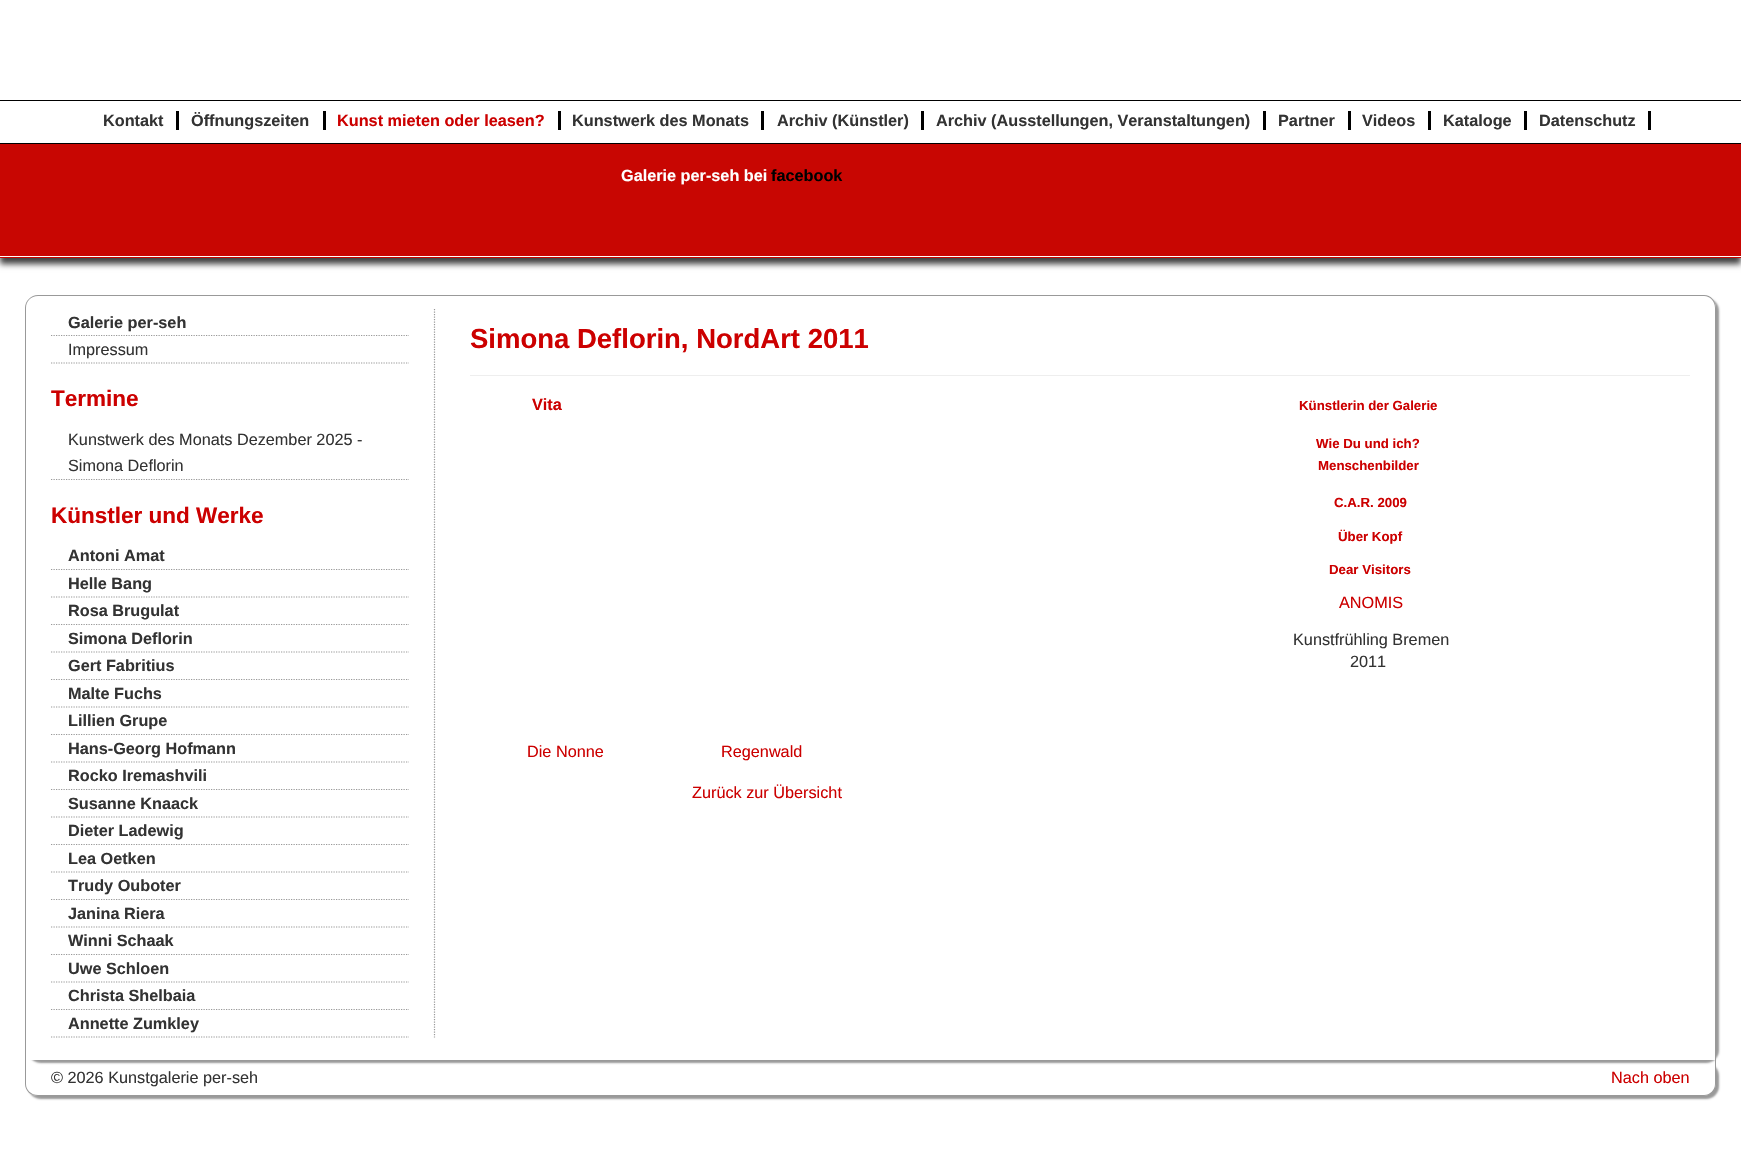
void draw(SkCanvas* c) {
SkPaint p;
p.setAntiAlias(true);
auto F=[&](const char* family, int weight, float size, bool italic = false){SkFontStyle style(weight, SkFontStyle::kNormal_Width,italic ? SkFontStyle::kItalic_Slant : SkFontStyle::kUpright_Slant);SkFont result(fontMgr->matchFamilyStyle(family, style), size);result.setSubpixel(true);return result;};
auto T=[&](const char* s, float x, float y, const SkFont& font){c->drawString(s, x, y, font, p);};
auto R=[&](float x, float y, float w, float h){c->drawRect(SkRect::MakeXYWH(x, y, w, h), p);};
auto P=[&](const char* data, bool evenOdd = false){SkPath result = *SkParsePath::FromSVGString(data);if (evenOdd) result.setFillType(SkPathFillType::kEvenOdd);return result;};
c->clear(0xffffffff);
p.setColor(0xff000000);
R(0,100,1741,1);
auto f1 = F("Liberation Sans",700,16.25);
p.setColor(0xff333333);
T("Kontakt",103,126,f1);
p.setColor(0xff000000);
R(176,111,3,19);
p.setColor(0xff333333);
T("Öffnungszeiten",191,126,f1);
p.setColor(0xff000000);
R(323,111,3,19);
p.setColor(0xffcc0000);
T("Kunst mieten oder leasen?",337,126,f1);
p.setColor(0xff000000);
R(558,111,3,19);
p.setColor(0xff333333);
T("Kunstwerk des Monats",572,126,f1);
p.setColor(0xff000000);
R(761,111,3,19);
p.setColor(0xff333333);
T("Archiv (Künstler)",777,126,f1);
p.setColor(0xff000000);
R(921,111,3,19);
p.setColor(0xff333333);
T("Archiv (Ausstellungen, Veranstaltungen)",936,126,f1);
p.setColor(0xff000000);
R(1263,111,3,19);
p.setColor(0xff333333);
T("Partner",1278,126,f1);
p.setColor(0xff000000);
R(1348,111,3,19);
p.setColor(0xff333333);
T("Videos",1362,126,f1);
p.setColor(0xff000000);
R(1428,111,3,19);
p.setColor(0xff333333);
T("Kataloge",1443,126,f1);
p.setColor(0xff000000);
R(1524,111,3,19);
p.setColor(0xff333333);
T("Datenschutz",1539,126,f1);
p.setColor(0xff000000);
R(1648,111,3,19);
p.setColor(0xbf000000);
p.setMaskFilter(SkMaskFilter::MakeBlur(kNormal_SkBlurStyle, 3));
c->drawRect(SkRect::MakeXYWH(0,149,1741,115),p);
p.setMaskFilter(nullptr);
p.setColor(0xffc80602);
R(0,144,1741,114);
p.setColor(0xff000000);
R(0,143,1741,1);
p.setColor(0xffffffff);
R(0,256,1741,1);
T("Galerie per-seh bei",621,181,f1);
p.setColor(0xff000000);
T("facebook",771,181,f1);
c->save();
c->clipPath(P("M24 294h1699v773h-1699zm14 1h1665c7 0 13 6 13 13v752h-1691v-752c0-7 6-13 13-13z",true),true);
p.setColor(0xff999999);
p.setMaskFilter(SkMaskFilter::MakeBlur(kNormal_SkBlurStyle, 1));
c->drawRoundRect(SkRect::MakeXYWH(28,298,1691,765),13,13,p);
p.setMaskFilter(nullptr);
c->restore();
c->drawPath(P("M38 295h1666c7 0 12 6 12 13v752h-1691v-752c0-7 6-13 13-13zm0 1h1666c6 0 11 5 11 12v752h-1689v-752c0-7 5-12 12-12z",true),p);
p.setStroke(true);
p.setStrokeWidth(1.2);
p.setPathEffect(SkDashPathEffect::Make({{1.25f,1.25f}}, 0));
c->drawPath(P("M434.5 309v728.5"),p);
p.setPathEffect(nullptr);
p.setPathEffect(SkDashPathEffect::Make({{1.25f,1.25f}}, 0));
c->drawPath(P("M51 335.5h358"),p);
p.setPathEffect(nullptr);
p.setStroke(false);
p.setColor(0xff333333);
T("Galerie per-seh",68,328,f1);
p.setStroke(true);
p.setColor(0xff999999);
p.setPathEffect(SkDashPathEffect::Make({{1.25f,1.25f}}, 0));
c->drawPath(P("M51 363h358"),p);
p.setPathEffect(nullptr);
auto f2 = F("Liberation Sans",400,16.25);
p.setStroke(false);
p.setColor(0xff333333);
T("Impressum",68,355,f2);
auto f3 = F("Liberation Sans",700,22.5);
p.setColor(0xffcc0000);
T("Termine",51,406,f3);
p.setStroke(true);
p.setColor(0xff999999);
p.setPathEffect(SkDashPathEffect::Make({{1.25f,1.25f}}, 0));
c->drawPath(P("M51 479.5h358"),p);
p.setPathEffect(nullptr);
p.setStroke(false);
p.setColor(0xff333333);
T("Kunstwerk des Monats Dezember 2025 -",68,445,f2);
T("Simona Deflorin",68,471,f2);
p.setColor(0xffcc0000);
T("Künstler und Werke",51,523,f3);
p.setStroke(true);
p.setColor(0xff999999);
p.setPathEffect(SkDashPathEffect::Make({{1.25f,1.25f}}, 0));
c->drawPath(P("M51 569.5h358"),p);
p.setPathEffect(nullptr);
p.setStroke(false);
p.setColor(0xff333333);
T("Antoni Amat",68,561,f1);
p.setStroke(true);
p.setColor(0xff999999);
p.setPathEffect(SkDashPathEffect::Make({{1.25f,1.25f}}, 0));
c->drawPath(P("M51 597h358"),p);
p.setPathEffect(nullptr);
p.setStroke(false);
p.setColor(0xff333333);
T("Helle Bang",68,589,f1);
p.setStroke(true);
p.setColor(0xff999999);
p.setPathEffect(SkDashPathEffect::Make({{1.25f,1.25f}}, 0));
c->drawPath(P("M51 624.5h358"),p);
p.setPathEffect(nullptr);
p.setStroke(false);
p.setColor(0xff333333);
T("Rosa Brugulat",68,616,f1);
p.setStroke(true);
p.setColor(0xff999999);
p.setPathEffect(SkDashPathEffect::Make({{1.25f,1.25f}}, 0));
c->drawPath(P("M51 652h358"),p);
p.setPathEffect(nullptr);
p.setStroke(false);
p.setColor(0xff333333);
T("Simona Deflorin",68,644,f1);
p.setStroke(true);
p.setColor(0xff999999);
p.setPathEffect(SkDashPathEffect::Make({{1.25f,1.25f}}, 0));
c->drawPath(P("M51 679.5h358"),p);
p.setPathEffect(nullptr);
p.setStroke(false);
p.setColor(0xff333333);
T("Gert Fabritius",68,671,f1);
p.setStroke(true);
p.setColor(0xff999999);
p.setPathEffect(SkDashPathEffect::Make({{1.25f,1.25f}}, 0));
c->drawPath(P("M51 707h358"),p);
p.setPathEffect(nullptr);
p.setStroke(false);
p.setColor(0xff333333);
T("Malte Fuchs",68,699,f1);
p.setStroke(true);
p.setColor(0xff999999);
p.setPathEffect(SkDashPathEffect::Make({{1.25f,1.25f}}, 0));
c->drawPath(P("M51 734.5h358"),p);
p.setPathEffect(nullptr);
p.setStroke(false);
p.setColor(0xff333333);
T("Lillien Grupe",68,726,f1);
p.setStroke(true);
p.setColor(0xff999999);
p.setPathEffect(SkDashPathEffect::Make({{1.25f,1.25f}}, 0));
c->drawPath(P("M51 762h358"),p);
p.setPathEffect(nullptr);
p.setStroke(false);
p.setColor(0xff333333);
T("Hans-Georg Hofmann",68,754,f1);
p.setStroke(true);
p.setColor(0xff999999);
p.setPathEffect(SkDashPathEffect::Make({{1.25f,1.25f}}, 0));
c->drawPath(P("M51 789.5h358"),p);
p.setPathEffect(nullptr);
p.setStroke(false);
p.setColor(0xff333333);
T("Rocko Iremashvili",68,781,f1);
p.setStroke(true);
p.setColor(0xff999999);
p.setPathEffect(SkDashPathEffect::Make({{1.25f,1.25f}}, 0));
c->drawPath(P("M51 817h358"),p);
p.setPathEffect(nullptr);
p.setStroke(false);
p.setColor(0xff333333);
T("Susanne Knaack",68,809,f1);
p.setStroke(true);
p.setColor(0xff999999);
p.setPathEffect(SkDashPathEffect::Make({{1.25f,1.25f}}, 0));
c->drawPath(P("M51 844.5h358"),p);
p.setPathEffect(nullptr);
p.setStroke(false);
p.setColor(0xff333333);
T("Dieter Ladewig",68,836,f1);
p.setStroke(true);
p.setColor(0xff999999);
p.setPathEffect(SkDashPathEffect::Make({{1.25f,1.25f}}, 0));
c->drawPath(P("M51 872h358"),p);
p.setPathEffect(nullptr);
p.setStroke(false);
p.setColor(0xff333333);
T("Lea Oetken",68,864,f1);
p.setStroke(true);
p.setColor(0xff999999);
p.setPathEffect(SkDashPathEffect::Make({{1.25f,1.25f}}, 0));
c->drawPath(P("M51 899.5h358"),p);
p.setPathEffect(nullptr);
p.setStroke(false);
p.setColor(0xff333333);
T("Trudy Ouboter",68,891,f1);
p.setStroke(true);
p.setColor(0xff999999);
p.setPathEffect(SkDashPathEffect::Make({{1.25f,1.25f}}, 0));
c->drawPath(P("M51 927h358"),p);
p.setPathEffect(nullptr);
p.setStroke(false);
p.setColor(0xff333333);
T("Janina Riera",68,919,f1);
p.setStroke(true);
p.setColor(0xff999999);
p.setPathEffect(SkDashPathEffect::Make({{1.25f,1.25f}}, 0));
c->drawPath(P("M51 954.5h358"),p);
p.setPathEffect(nullptr);
p.setStroke(false);
p.setColor(0xff333333);
T("Winni Schaak",68,946,f1);
p.setStroke(true);
p.setColor(0xff999999);
p.setPathEffect(SkDashPathEffect::Make({{1.25f,1.25f}}, 0));
c->drawPath(P("M51 982h358"),p);
p.setPathEffect(nullptr);
p.setStroke(false);
p.setColor(0xff333333);
T("Uwe Schloen",68,974,f1);
p.setStroke(true);
p.setColor(0xff999999);
p.setPathEffect(SkDashPathEffect::Make({{1.25f,1.25f}}, 0));
c->drawPath(P("M51 1009.5h358"),p);
p.setPathEffect(nullptr);
p.setStroke(false);
p.setColor(0xff333333);
T("Christa Shelbaia",68,1001,f1);
p.setStroke(true);
p.setColor(0xff999999);
p.setPathEffect(SkDashPathEffect::Make({{1.25f,1.25f}}, 0));
c->drawPath(P("M51 1037h358"),p);
p.setPathEffect(nullptr);
p.setStroke(false);
p.setColor(0xff333333);
T("Annette Zumkley",68,1029,f1);
p.setColor(0xffeeeeee);
R(470,375,1220,1);
auto f4 = F("Liberation Sans",700,27.5);
p.setColor(0xffcc0000);
T("Simona Deflorin, NordArt 2011",470,348,f4);
T("Vita",532,410,f1);
auto f5 = F("Liberation Sans",700,13.25);
T("Künstlerin der Galerie",1299,410,f5);
T("Wie Du und ich?",1316,448,f5);
T("Menschenbilder",1318,470,f5);
T("C.A.R. 2009",1334,507,f5);
T("Über Kopf",1338,541,f5);
T("Dear Visitors",1329,574,f5);
T("ANOMIS",1339,608,f2);
p.setColor(0xff333333);
T("Kunstfrühling Bremen",1293,645,f2);
T("2011",1350,667,f2);
p.setColor(0xffcc0000);
T("Die Nonne",527,757,f2);
T("Regenwald",721,757,f2);
T("Zurück zur Übersicht",692,798,f2);
c->save();
c->clipPath(P("M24 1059h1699v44h-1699zm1 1h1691v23c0 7-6 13-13 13h-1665c-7 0-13-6-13-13z",true),true);
p.setColor(0xff999999);
p.setMaskFilter(SkMaskFilter::MakeBlur(kNormal_SkBlurStyle, 1));
c->drawRoundRect(SkRect::MakeXYWH(28,1063,1691,36),13,13,p);
p.setMaskFilter(nullptr);
c->restore();
c->drawPath(P("M25 1060h1691v24c0 7-5 12-12 12h-1666c-7 0-13-5-13-12zm1 0h1689v24c0 6-5 11-11 11h-1666c-7 0-12-5-12-11z",true),p);
p.setColor(0xff333333);
T("© 2026 Kunstgalerie per-seh",51,1083,f2);
p.setColor(0xffcc0000);
T("Nach oben",1611,1083,f2);
}
